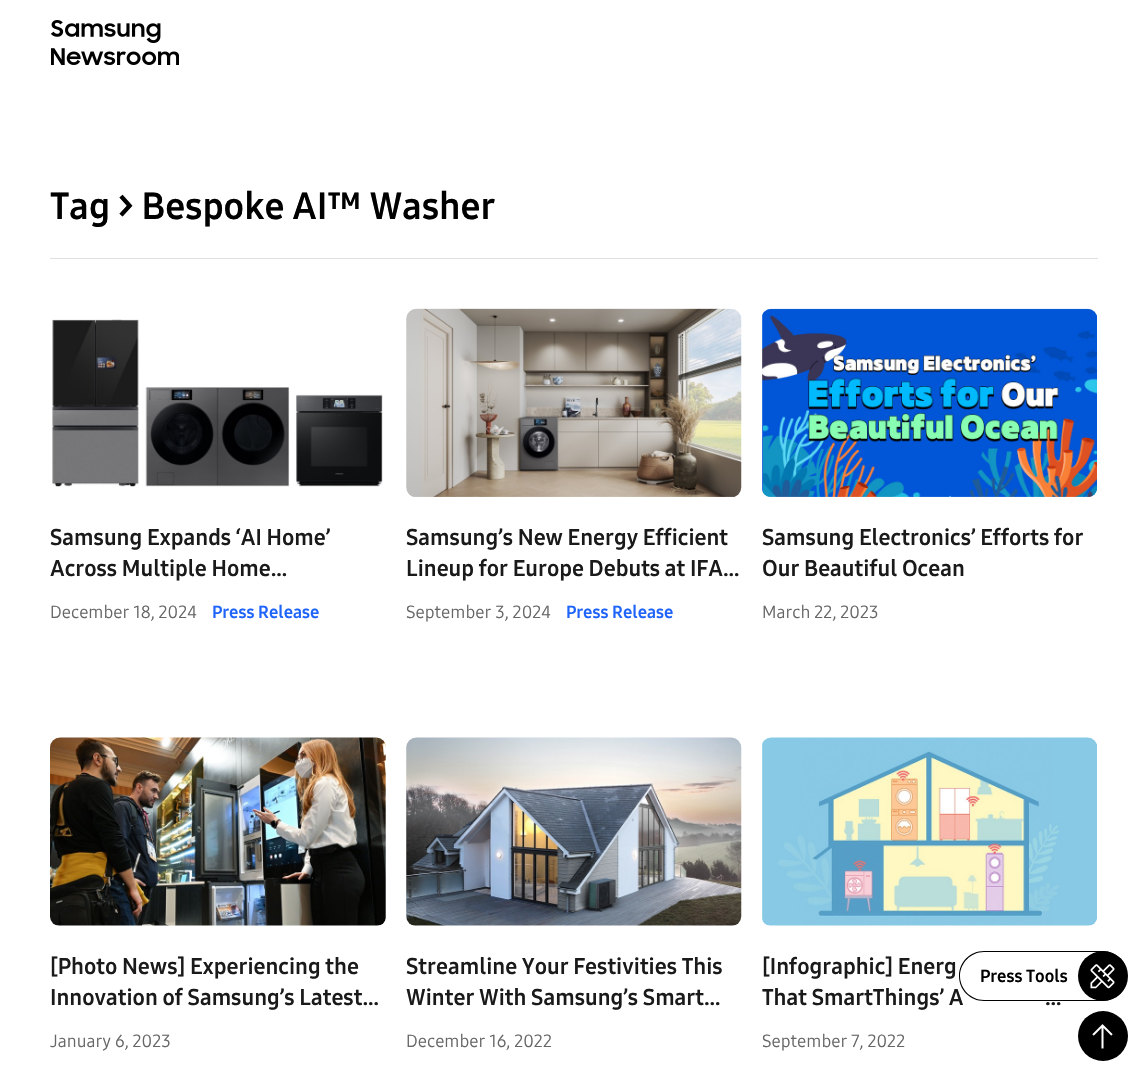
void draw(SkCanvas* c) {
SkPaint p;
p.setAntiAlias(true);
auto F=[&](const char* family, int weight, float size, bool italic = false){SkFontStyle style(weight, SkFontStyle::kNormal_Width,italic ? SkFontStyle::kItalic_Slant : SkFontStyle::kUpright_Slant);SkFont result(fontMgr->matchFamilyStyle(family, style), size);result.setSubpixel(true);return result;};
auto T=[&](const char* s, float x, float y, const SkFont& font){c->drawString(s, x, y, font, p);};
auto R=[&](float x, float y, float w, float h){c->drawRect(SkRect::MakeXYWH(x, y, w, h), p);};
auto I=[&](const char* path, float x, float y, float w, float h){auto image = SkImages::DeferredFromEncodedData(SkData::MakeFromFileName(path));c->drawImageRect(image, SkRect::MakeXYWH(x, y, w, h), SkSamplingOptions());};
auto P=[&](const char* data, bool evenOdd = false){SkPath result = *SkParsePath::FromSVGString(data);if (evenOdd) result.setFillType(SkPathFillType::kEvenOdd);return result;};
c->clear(0xffffffff);
I("1.png",51,20,128,45);
p.setColor(0xffe0e0e0);
R(50,258,1048,1);
auto f1 = F("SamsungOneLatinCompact",700,37.5);
p.setColor(0xff000000);
T("Tag > Bespoke AI™ Washer",50,219,f1);
I("2.png",52,319,331,168);
auto f2 = F("SamsungOneLatinCompact",700,22.5);
p.setColor(0xff1a1a1a);
T("Samsung Expands ‘AI Home’",50,545,f2);
T("Across Multiple Home…",50,576,f2);
auto f3 = F("SamsungOneLatinCompact",400,17.5);
p.setColor(0xff666666);
T("December 18, 2024",50,618,f3);
auto f4 = F("SamsungOneLatinCompact",700,17.5);
p.setColor(0xff1e64fa);
T("Press Release",212,618,f4);
I("3.png",406,308,336,189);
p.setColor(0xff1a1a1a);
T("Samsung’s New Energy Efficient",406,545,f2);
T("Lineup for Europe Debuts at IFA…",406,576,f2);
p.setColor(0xff666666);
T("September 3, 2024",406,618,f3);
p.setColor(0xff1e64fa);
T("Press Release",566,618,f4);
I("4.png",762,308,335,189);
p.setColor(0xff1a1a1a);
T("Samsung Electronics’ Efforts for",762,545,f2);
T("Our Beautiful Ocean",762,576,f2);
p.setColor(0xff666666);
T("March 22, 2023",762,618,f3);
I("5.png",50,737,336,189);
p.setColor(0xff1a1a1a);
T("[Photo News] Experiencing the",50,974,f2);
T("Innovation of Samsung’s Latest…",50,1005,f2);
p.setColor(0xff666666);
T("January 6, 2023",50,1047,f3);
I("6.png",406,737,336,189);
p.setColor(0xff1a1a1a);
T("Streamline Your Festivities This",406,974,f2);
T("Winter With Samsung’s Smart…",406,1005,f2);
p.setColor(0xff666666);
T("December 16, 2022",406,1047,f3);
I("7.png",762,737,335,189);
p.setColor(0xff1a1a1a);
T("[Infographic] Energ",762,974,f2);
T("That SmartThings’ A",762,1005,f2);
T("…",1045,1005,f2);
p.setColor(0xff666666);
T("September 7, 2022",762,1047,f3);
p.setColor(0xff000000);
c->drawPath(P("M984 951h118c14 0 26 11 26 25c0 14-12 25-26 25h-118c-14 0-25-11-25-25c0-14 11-25 25-25zm0 1h118c14 0 26 11 26 24c0 13-12 24-26 24h-118c-13 0-24-11-24-24c0-13 11-24 24-24z",true),p);
T("Press Tools",980,982,f4);
c->drawCircle(1103,976,25,p);
I("8.png",1090,964,25,25);
c->drawCircle(1103,1036,25,p);
I("9.png",1092,1024,21,25);
}
